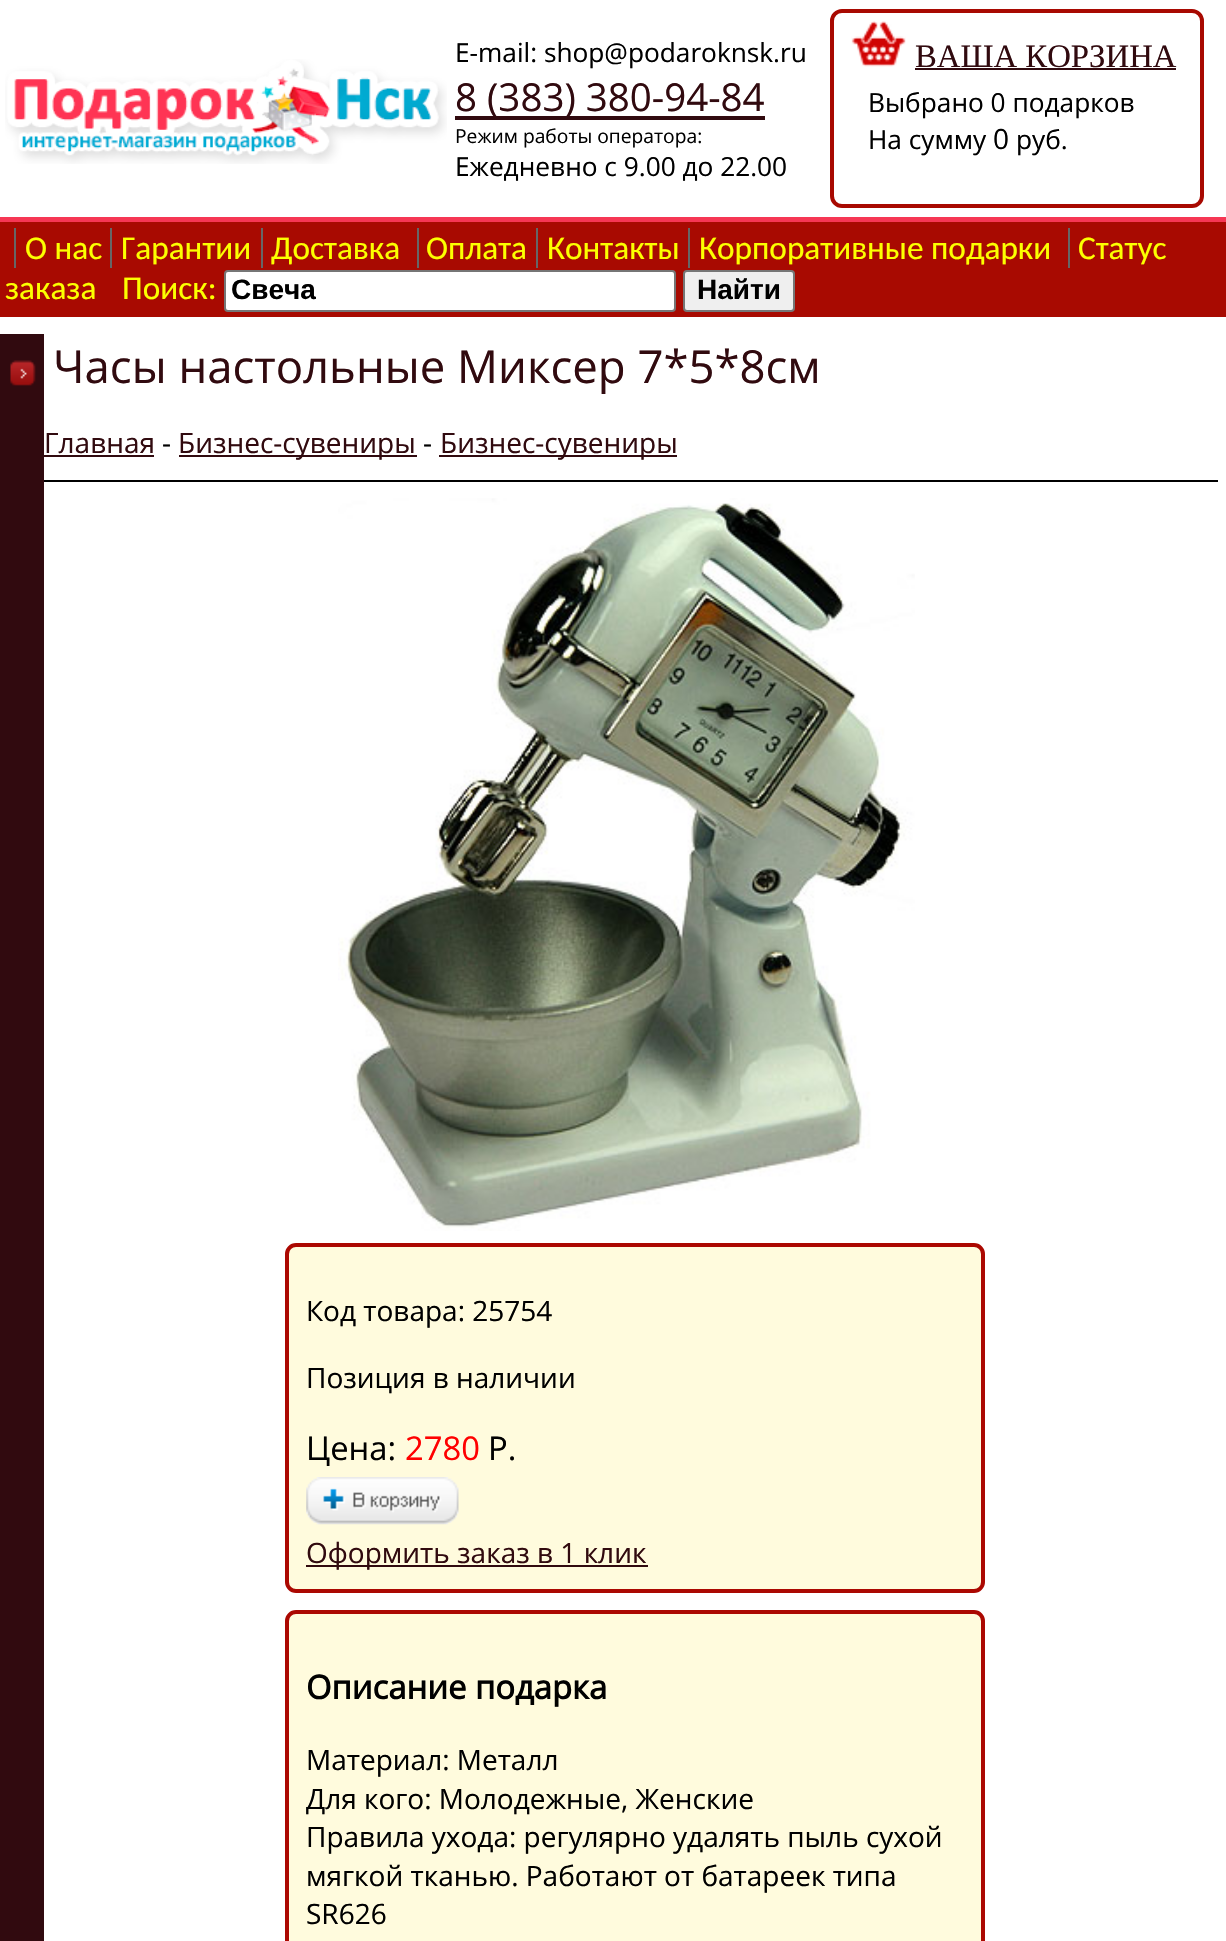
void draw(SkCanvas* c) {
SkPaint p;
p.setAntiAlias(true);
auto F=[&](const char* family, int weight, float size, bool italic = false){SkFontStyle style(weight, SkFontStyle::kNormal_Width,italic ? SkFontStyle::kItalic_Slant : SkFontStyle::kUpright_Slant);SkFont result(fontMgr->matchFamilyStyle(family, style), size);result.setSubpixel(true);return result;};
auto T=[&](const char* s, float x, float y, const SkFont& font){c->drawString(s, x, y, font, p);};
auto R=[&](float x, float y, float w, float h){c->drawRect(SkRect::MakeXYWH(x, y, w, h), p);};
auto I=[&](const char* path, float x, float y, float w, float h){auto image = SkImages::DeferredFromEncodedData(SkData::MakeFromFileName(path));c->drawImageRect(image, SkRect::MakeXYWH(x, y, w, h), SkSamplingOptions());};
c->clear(0xffffffff);
I("1.png",5,59,442,105);
auto f1 = F("Open Sans",400,26.25);
p.setColor(0xff000000);
T("E-mail: shop@podaroknsk.ru",455,62,f1);
p.setColor(0xff310a0f);
R(455,116,310,4);
auto f2 = F("Open Sans",400,38.5);
T("8 (383) 380-94-84",455,111,f2);
auto f3 = F("Open Sans",400,19.25);
p.setColor(0xff000000);
T("Режим работы оператора:",455,143,f3);
T("Ежедневно с 9.00 до 22.00",455,176,f1);
p.setStroke(true);
p.setStrokeWidth(4);
p.setColor(0xffa80901);
c->drawRoundRect(SkRect::MakeXYWH(832,11,370,195),10,10,p);
I("2.png",851,21,55,46);
auto f4 = F("Liberation Serif",400,32.75);
p.setStroke(false);
p.setColor(0xff310a0f);
T("ВАША КОРЗИНА",915,67,f4);
R(915,68,261,2);
p.setColor(0xff000000);
T("Выбрано 0 подарков",868,112,f1);
T("На сумму",868,149,f1);
auto f5 = F("Open Sans",400,28);
T("0",993,149,f5);
T("руб.",1016,149,f1);
p.setColor(0xffa80a01);
R(0,222,1226,95);
p.setColor(0xfff63754);
R(0,217,1226,5);
auto f6 = F("Carlito",400,33.25);
p.setColor(0xfffcff00);
T("О нас",25,259,f6);
p.setColor(0xff666666);
R(14,228,2,40);
R(110,228,2,40);
p.setColor(0xfffcff00);
T("Гарантии",121,259,f6);
T("Доставка",271,259,f6);
p.setColor(0xff666666);
R(261,228,2,40);
p.setColor(0xfffcff00);
T("Оплата",426,259,f6);
p.setColor(0xff666666);
R(417,228,2,40);
R(536,228,2,40);
p.setColor(0xfffcff00);
T("Контакты",547,259,f6);
p.setColor(0xff666666);
R(688,228,2,40);
p.setColor(0xfffcff00);
T("Корпоративные подарки",699,259,f6);
T("Статус",1078,259,f6);
p.setColor(0xff666666);
R(1068,228,2,40);
p.setColor(0xfffcff00);
T("заказа",5,299,f6);
T("Поиск:",122,299,f6);
p.setColor(0xffffffff);
c->drawRoundRect(SkRect::MakeXYWH(225,271,450,40),3,3,p);
p.setStroke(true);
p.setStrokeWidth(2);
p.setColor(0xff767676);
c->drawRoundRect(SkRect::MakeXYWH(225,271,450,40),3,3,p);
auto f7 = F("Liberation Sans",700,28);
p.setStroke(false);
p.setColor(0xff000000);
T("Свеча",231,299,f7);
p.setColor(0xffefefef);
c->drawRoundRect(SkRect::MakeXYWH(684,271,110,40),3,3,p);
p.setStroke(true);
p.setColor(0xff767676);
c->drawRoundRect(SkRect::MakeXYWH(684,271,110,40),3,3,p);
p.setStroke(false);
p.setColor(0xff000000);
T("Найти",697,299,f7);
p.setColor(0xff310a0f);
R(0,334,44,1607);
I("3.png",10,360,26,26);
auto f8 = F("Open Sans",400,45.5);
T("Часы настольные Миксер 7*5*8см",53,383,f8);
p.setColor(0xff000000);
R(44,480,1174,2);
p.setColor(0xff310a0f);
T("Главная",44,453,f5);
R(44,455,110,2);
p.setColor(0xff000000);
T("-",162,453,f5);
p.setColor(0xff310a0f);
R(179,455,238,2);
T("Бизнес-сувениры",178,453,f5);
p.setColor(0xff000000);
T("-",423,453,f5);
p.setColor(0xff310a0f);
R(439,455,238,2);
T("Бизнес-сувениры",440,453,f5);
I("4.png",338,498,577,733);
p.setColor(0xfffffbdd);
c->drawRoundRect(SkRect::MakeXYWH(287,1245,696,346),9,9,p);
p.setStroke(true);
p.setStrokeWidth(4);
p.setColor(0xffab0801);
c->drawRoundRect(SkRect::MakeXYWH(287,1245,696,346),9,9,p);
p.setStroke(false);
p.setColor(0xff000000);
T("Код товара: 25754",306,1321,f5);
T("Позиция в наличии",306,1388,f5);
auto f9 = F("Open Sans",400,32.75);
T("Цена:",306,1460,f9);
p.setColor(0xffff0000);
T("2780",405,1460,f9);
p.setColor(0xff000000);
T("Р.",488,1460,f9);
I("5.png",306,1477,153,48);
p.setColor(0xff310a0f);
R(306,1565,342,2);
T("Оформить заказ в 1 клик",306,1563,f5);
p.setColor(0xfffffbdd);
c->drawRoundRect(SkRect::MakeXYWH(287,1612,696,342),9,9,p);
p.setStroke(true);
p.setColor(0xffab0801);
c->drawRoundRect(SkRect::MakeXYWH(287,1612,696,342),9,9,p);
auto f10 = F("Open Sans",700,32.75);
p.setStroke(false);
p.setColor(0xff000000);
T("Описание подарка",306,1699,f10);
T("Материал: Металл",306,1770,f5);
T("Для кого: Молодежные, Женские",306,1809,f5);
T("Правила ухода: регулярно удалять пыль сухой",306,1847,f5);
T("мягкой тканью. Работают от батареек типа",306,1886,f5);
T("SR626",306,1924,f5);
}
